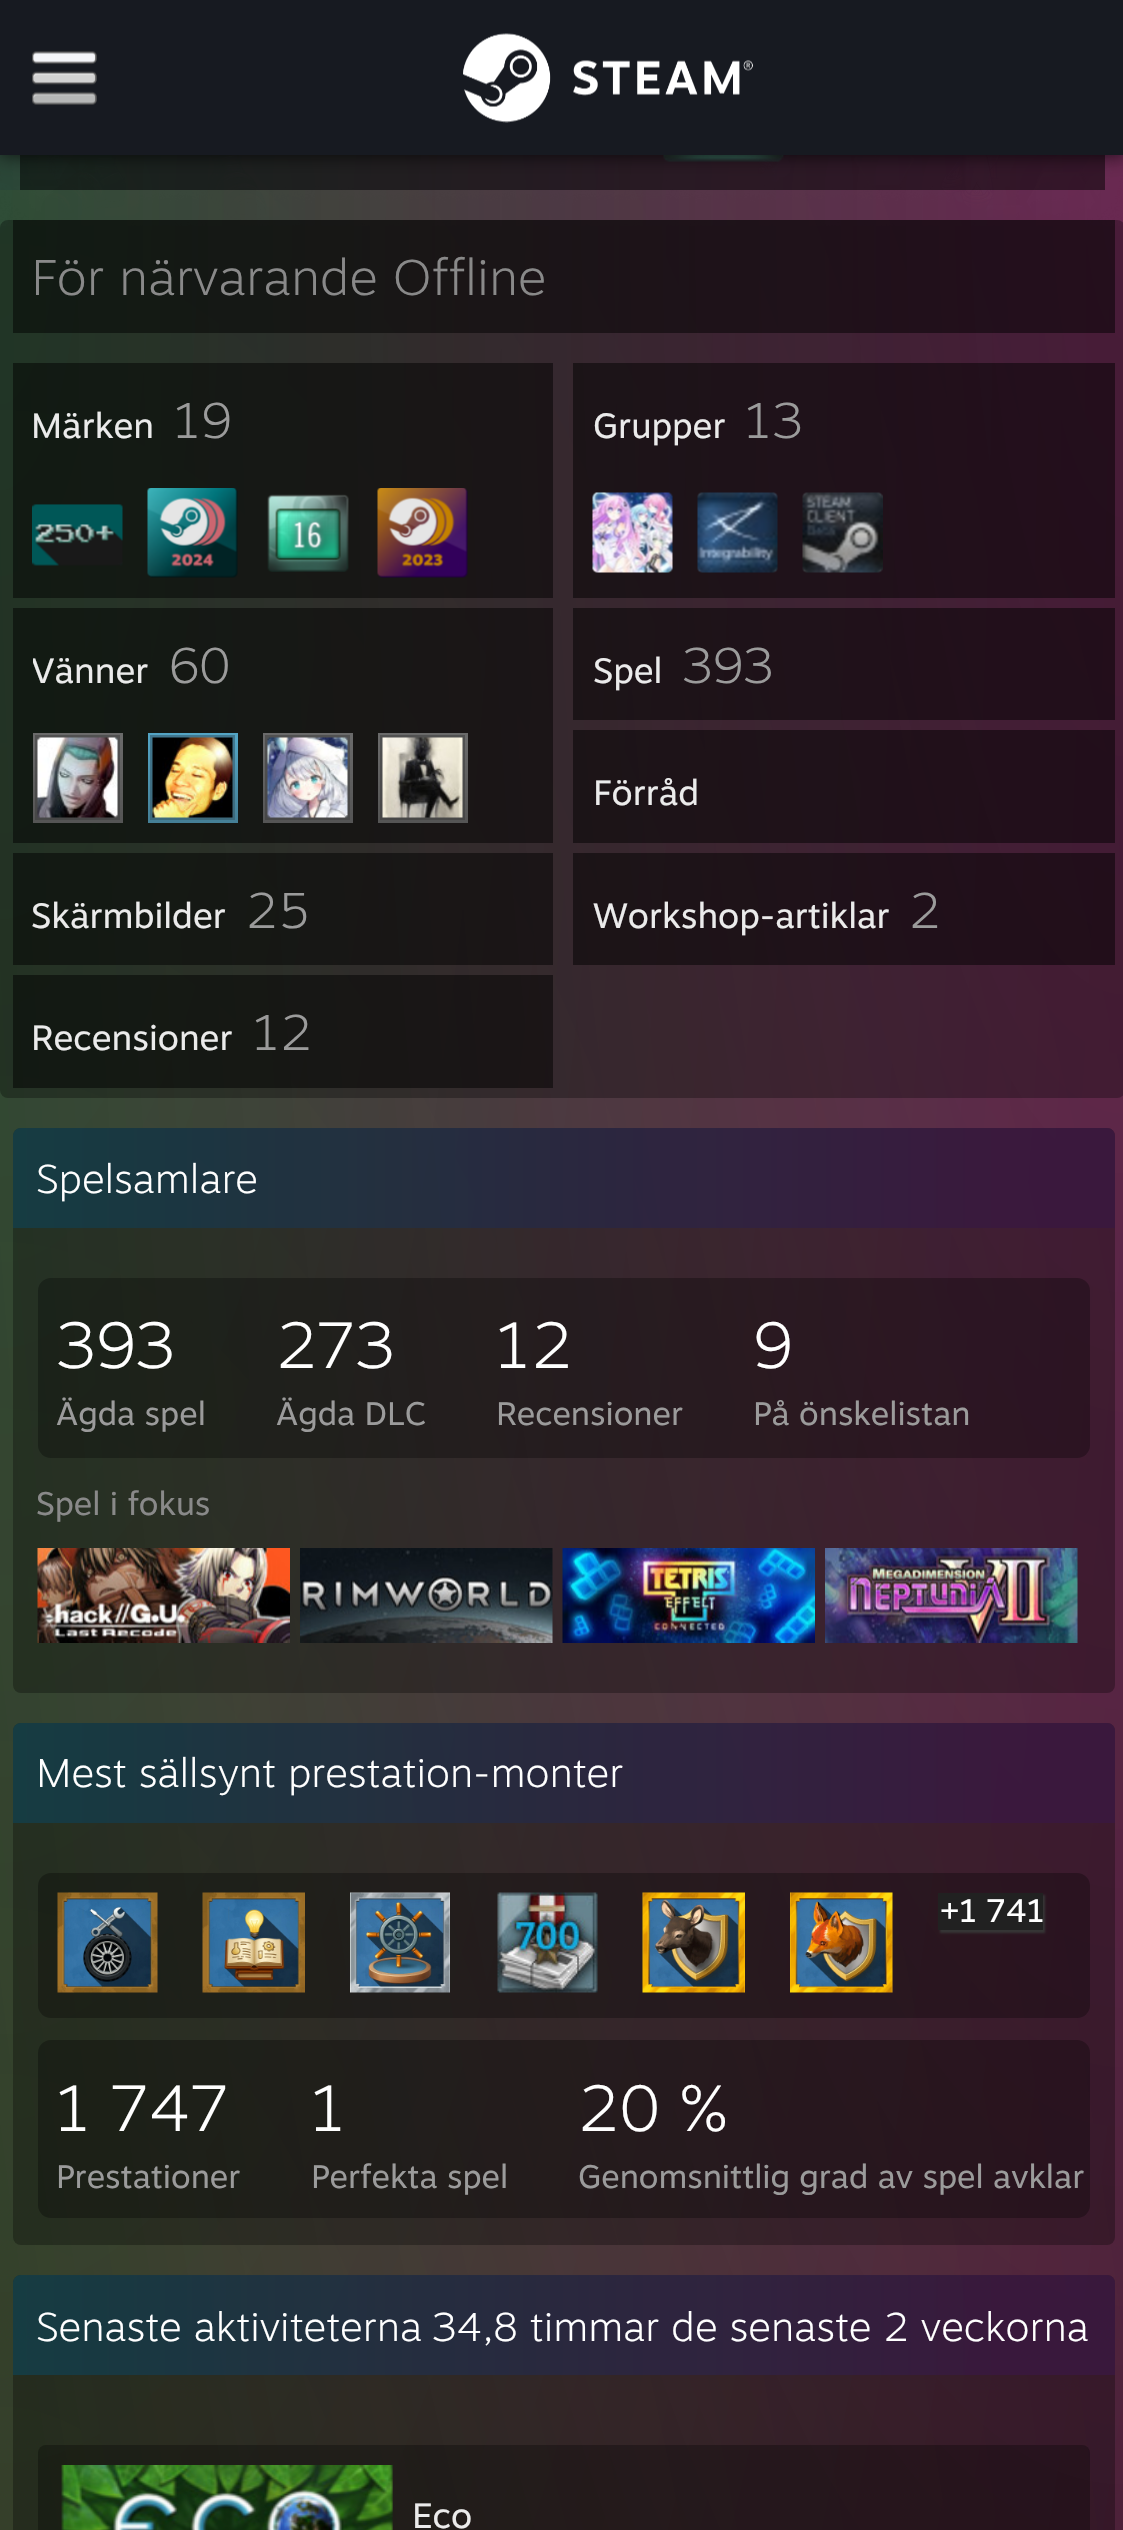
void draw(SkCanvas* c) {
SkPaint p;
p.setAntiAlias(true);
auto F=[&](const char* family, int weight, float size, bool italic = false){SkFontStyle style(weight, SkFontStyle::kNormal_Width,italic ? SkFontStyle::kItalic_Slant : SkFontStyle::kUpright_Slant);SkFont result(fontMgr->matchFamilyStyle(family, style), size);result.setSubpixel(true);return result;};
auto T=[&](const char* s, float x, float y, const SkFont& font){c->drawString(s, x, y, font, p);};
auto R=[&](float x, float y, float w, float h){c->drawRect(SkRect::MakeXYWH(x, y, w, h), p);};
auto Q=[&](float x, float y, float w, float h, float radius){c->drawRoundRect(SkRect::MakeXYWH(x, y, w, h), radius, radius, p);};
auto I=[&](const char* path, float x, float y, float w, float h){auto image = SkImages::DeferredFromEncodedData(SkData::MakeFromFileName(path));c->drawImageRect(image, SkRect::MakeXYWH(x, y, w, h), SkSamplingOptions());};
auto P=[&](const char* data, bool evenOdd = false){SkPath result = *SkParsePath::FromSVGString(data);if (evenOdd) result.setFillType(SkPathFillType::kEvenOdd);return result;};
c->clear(0xff000000);
I("3.png",0,155,1123,71);
p.setColor(0xed2e0d24);
R(0,155,1123,35);
{
const SkColor colors[] = {0x4009f363,0x0009f363};
const float stops[] = {0,.94};
SkMatrix m = SkMatrix::Translate(0,190).preScale(1591,940);
p.setShader(SkGradientShader::MakeRadial({0, 0}, 1, colors, stops, 2, SkTileMode::kClamp, 0, &m));
p.setAlpha(255);
}
R(0,155,1123,35);
{
const SkColor colors[] = {0x4df846b4,0x00f846b4};
const float stops[] = {0,1};
SkMatrix m = SkMatrix::Translate(1125,190).preScale(1250,739);
p.setShader(SkGradientShader::MakeRadial({0, 0}, 1, colors, stops, 2, SkTileMode::kClamp, 0, &m));
p.setAlpha(255);
}
R(0,155,1123,35);
p.setShader(nullptr);
p.setColor(0x80000000);
R(20,155,1085,35);
I("4.png",663,155,121,7);
p.setColor(0xbf000000);
p.setMaskFilter(SkMaskFilter::MakeBlur(kNormal_SkBlurStyle, 9));
c->drawRect(SkRect::MakeXYWH(0,0,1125,155),p);
p.setMaskFilter(nullptr);
p.setColor(0xff171a21);
R(0,0,1123,155);
I("1.png",32,51,65,54);
I("2.png",463,33,290,90);
p.setColor(0xed2e0d24);
R(0,190,1123,2340);
{
const SkColor colors[] = {0x21eff309,0x00eff309};
const float stops[] = {0,.94};
SkMatrix m = SkMatrix::Translate(0,4320).preScale(1591,5841);
p.setShader(SkGradientShader::MakeRadial({0, 0}, 1, colors, stops, 2, SkTileMode::kClamp, 0, &m));
p.setAlpha(255);
}
R(0,190,1123,2340);
{
const SkColor colors[] = {0x4009f363,0x0009f363};
const float stops[] = {0,.94};
SkMatrix m = SkMatrix::Translate(0,190).preScale(1591,5841);
p.setShader(SkGradientShader::MakeRadial({0, 0}, 1, colors, stops, 2, SkTileMode::kClamp, 0, &m));
p.setAlpha(255);
}
R(0,190,1123,2340);
{
const SkColor colors[] = {0x4df846b4,0x00f846b4};
const float stops[] = {0,1};
SkMatrix m = SkMatrix::Translate(1125,190).preScale(1250,4589);
p.setShader(SkGradientShader::MakeRadial({0, 0}, 1, colors, stops, 2, SkTileMode::kClamp, 0, &m));
p.setAlpha(255);
}
R(0,190,1123,2340);
p.setShader(nullptr);
p.setColor(0x4d000000);
Q(0,220,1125,878,8);
p.setColor(0x80000000);
R(13,220,1102,113);
auto f1 = F("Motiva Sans",100,50);
p.setColor(0xff898989);
T("För närvarande Offline",31,295,f1);
p.setColor(0x80000000);
R(573,363,542,235);
auto f2 = F("Motiva Sans",400,35);
p.setColor(0xffebebeb);
T("Grupper",593,438,f2);
p.setColor(0xff9b9b9b);
T("13",745,438,f1);
c->save();
c->clipRect(SkRect::MakeXYWH(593,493,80,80));
c->clipPath(P("M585 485h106v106h-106zm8 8h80v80h-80z",true),true);
p.setColor(0xff0c0c0c);
p.setMaskFilter(SkMaskFilter::MakeBlur(kNormal_SkBlurStyle, 4));
c->drawRect(SkRect::MakeXYWH(598,498,80,80),p);
p.setMaskFilter(nullptr);
c->restore();
I("5.png",592,492,81,81);
c->save();
c->clipRect(SkRect::MakeXYWH(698,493,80,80));
c->clipPath(P("M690 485h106v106h-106zm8 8h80v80h-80z",true),true);
p.setMaskFilter(SkMaskFilter::MakeBlur(kNormal_SkBlurStyle, 4));
c->drawRect(SkRect::MakeXYWH(703,498,80,80),p);
p.setMaskFilter(nullptr);
c->restore();
I("6.png",697,492,81,81);
c->save();
c->clipRect(SkRect::MakeXYWH(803,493,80,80));
c->clipPath(P("M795 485h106v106h-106zm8 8h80v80h-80z",true),true);
p.setMaskFilter(SkMaskFilter::MakeBlur(kNormal_SkBlurStyle, 4));
c->drawRect(SkRect::MakeXYWH(808,498,80,80),p);
p.setMaskFilter(nullptr);
c->restore();
I("7.png",802,492,81,81);
p.setColor(0x80000000);
R(13,608,540,235);
c->save();
c->clipRect(SkRect::MakeXYWH(33,628,500,72));
p.setColor(0xffebebeb);
T("Vänner",31,683,f2);
c->restore();
p.setColor(0xff9b9b9b);
T("60",169,683,f1);
{
const SkColor colors[] = {0xff6a6a6a,0xff555555};
const float stops[] = {.05,.95};
const SkPoint ends[] = {{77,733}, {78,823}};
p.setShader(SkGradientShader::MakeLinear(ends, colors, stops, 2, SkTileMode::kClamp));
p.setAlpha(255);
}
R(33,733,90,90);
{
const SkColor colors[] = {0xff515151,0xff474747};
const float stops[] = {.05,.95};
const SkPoint ends[] = {{77,735}, {78,820}};
p.setShader(SkGradientShader::MakeLinear(ends, colors, stops, 2, SkTileMode::kClamp));
p.setAlpha(255);
}
R(35,735,85,85);
I("8.png",37,737,81,81);
{
const SkColor colors[] = {0xff53a4c4,0xff458097};
const float stops[] = {.05,.95};
const SkPoint ends[] = {{193,733}, {193,823}};
p.setShader(SkGradientShader::MakeLinear(ends, colors, stops, 2, SkTileMode::kClamp));
p.setAlpha(255);
}
R(148,733,90,90);
{
const SkColor colors[] = {0xff41778f,0xff3d697b};
const float stops[] = {.05,.95};
const SkPoint ends[] = {{193,735}, {193,820}};
p.setShader(SkGradientShader::MakeLinear(ends, colors, stops, 2, SkTileMode::kClamp));
p.setAlpha(255);
}
R(150,735,85,85);
I("9.png",152,737,81,81);
{
const SkColor colors[] = {0xff6a6a6a,0xff555555};
const float stops[] = {.05,.95};
const SkPoint ends[] = {{308,733}, {308,823}};
p.setShader(SkGradientShader::MakeLinear(ends, colors, stops, 2, SkTileMode::kClamp));
p.setAlpha(255);
}
R(263,733,90,90);
{
const SkColor colors[] = {0xff515151,0xff474747};
const float stops[] = {.05,.95};
const SkPoint ends[] = {{308,735}, {308,820}};
p.setShader(SkGradientShader::MakeLinear(ends, colors, stops, 2, SkTileMode::kClamp));
p.setAlpha(255);
}
R(265,735,85,85);
I("10.png",267,737,81,81);
{
const SkColor colors[] = {0xff6a6a6a,0xff555555};
const float stops[] = {.05,.95};
const SkPoint ends[] = {{423,733}, {423,823}};
p.setShader(SkGradientShader::MakeLinear(ends, colors, stops, 2, SkTileMode::kClamp));
p.setAlpha(255);
}
R(378,733,90,90);
{
const SkColor colors[] = {0xff515151,0xff474747};
const float stops[] = {.05,.95};
const SkPoint ends[] = {{423,735}, {423,820}};
p.setShader(SkGradientShader::MakeLinear(ends, colors, stops, 2, SkTileMode::kClamp));
p.setAlpha(255);
}
R(380,735,85,85);
I("11.png",382,737,81,81);
p.setShader(nullptr);
p.setColor(0x80000000);
R(13,363,540,235);
p.setColor(0xffebebeb);
T("Märken",31,438,f2);
p.setColor(0xff9b9b9b);
T("19",174,438,f1);
I("12.png",32,504,91,62);
I("13.png",147,488,91,90);
I("14.png",267,494,82,78);
I("15.png",377,488,91,90);
p.setColor(0x80000000);
R(573,608,542,112);
p.setColor(0xffebebeb);
T("Spel",593,683,f2);
p.setColor(0xff9b9b9b);
T("393",682,683,f1);
p.setColor(0x80000000);
R(573,730,542,113);
p.setColor(0xffebebeb);
T("Förråd",593,805,f2);
p.setColor(0x80000000);
R(13,853,540,112);
p.setColor(0xffebebeb);
T("Skärmbilder",31,928,f2);
p.setColor(0xff9b9b9b);
T("25",246,928,f1);
p.setColor(0x80000000);
R(573,853,542,112);
p.setColor(0xffebebeb);
T("Workshop-artiklar",593,928,f2);
p.setColor(0xff9b9b9b);
T("2",909,928,f1);
p.setColor(0x80000000);
R(13,975,540,113);
p.setColor(0xffebebeb);
T("Recensioner",31,1050,f2);
p.setColor(0xff9b9b9b);
T("12",253,1050,f1);
p.setColor(0x4d000000);
Q(13,1128,1102,565,8);
{
const SkColor colors[] = {0xed143c44,0xed39183d};
const float stops[] = {0,.9};
const SkPoint ends[] = {{13,1178}, {1115,1178}};
p.setShader(SkGradientShader::MakeLinear(ends, colors, stops, 2, SkTileMode::kClamp));
p.setAlpha(255);
}
c->drawPath(P("M21 1128h1086c4.5 0 8 3.5 8 8v92h-1102v-92c0-4.5 3.5-8 8-8z"),p);
auto f3 = F("Motiva Sans",100,40);
p.setShader(nullptr);
p.setColor(0xffffffff);
T("Spelsamlare",36,1193,f3);
p.setColor(0x4d000000);
Q(38,1278,1052,180,13);
auto f4 = F("Motiva Sans",100,65);
p.setColor(0xffffffff);
T("393",56,1368,f4);
auto f5 = F("Motiva Sans",400,32.5);
p.setColor(0xff9b9b9b);
T("Ägda spel",56,1425,f5);
p.setColor(0xffffffff);
T("273",276,1368,f4);
p.setColor(0xff9b9b9b);
T("Ägda DLC",276,1425,f5);
p.setColor(0xffffffff);
T("12",496,1368,f4);
p.setColor(0xff9b9b9b);
T("Recensioner",496,1425,f5);
p.setColor(0xffffffff);
T("9",753,1368,f4);
p.setColor(0xff9b9b9b);
T("På önskelistan",753,1425,f5);
p.setColor(0xff898989);
T("Spel i fokus",36,1515,f5);
I("16.png",37,1548,253,95);
I("17.png",300,1548,253,95);
I("18.png",562,1548,253,95);
I("19.png",825,1548,253,95);
p.setColor(0x4d000000);
Q(13,1723,1102,522,8);
{
const SkColor colors[] = {0xed143c44,0xed39183d};
const float stops[] = {0,.9};
const SkPoint ends[] = {{13,1773}, {1115,1773}};
p.setShader(SkGradientShader::MakeLinear(ends, colors, stops, 2, SkTileMode::kClamp));
p.setAlpha(255);
}
c->drawPath(P("M21 1723h1086c4.5 0 8 3.5 8 8v92h-1102v-92c0-4.5 3.5-8 8-8z"),p);
p.setShader(nullptr);
p.setColor(0xffffffff);
T("Mest sällsynt prestation-monter",36,1787,f3);
p.setColor(0x4d000000);
Q(38,1873,1052,145,13);
I("20.png",57,1892,101,101);
I("21.png",202,1892,103,101);
I("22.png",350,1892,100,101);
I("23.png",497,1892,101,101);
I("24.png",642,1892,103,101);
I("25.png",790,1892,103,101);
p.setColor(0xff353535);
p.setMaskFilter(SkMaskFilter::MakeBlur(kNormal_SkBlurStyle, 1));
c->drawRect(SkRect::MakeXYWH(940,1895,105,38),p);
p.setMaskFilter(nullptr);
p.setColor(0xff212121);
R(938,1893,105,37);
p.setColor(0xffffffff);
T("+1 741",940,1922,f5);
p.setColor(0x4d000000);
Q(38,2040,1052,178,13);
p.setColor(0xffffffff);
T("1 747",56,2131,f4);
p.setColor(0xff9b9b9b);
T("Prestationer",56,2188,f5);
p.setColor(0xffffffff);
T("1",311,2131,f4);
p.setColor(0xff9b9b9b);
T("Perfekta spel",311,2188,f5);
p.setColor(0xffffffff);
T("20 %",578,2131,f4);
p.setColor(0xff9b9b9b);
T("Genomsnittlig grad av spel avklar",578,2188,f5);
p.setColor(0x4d000000);
Q(13,2275,1102,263,8);
{
const SkColor colors[] = {0xed143c44,0xed39183d};
const float stops[] = {0,.9};
const SkPoint ends[] = {{13,2325}, {1115,2325}};
p.setShader(SkGradientShader::MakeLinear(ends, colors, stops, 2, SkTileMode::kClamp));
p.setAlpha(255);
}
c->drawPath(P("M21 2275h1086c4.5 0 8 3.5 8 8v92h-1102v-92c0-4.5 3.5-8 8-8z"),p);
p.setShader(nullptr);
p.setColor(0xffffffff);
T("Senaste aktiviteterna",36,2341,f3);
T("34,8 timmar de senaste 2 veckorna",432,2341,f3);
p.setColor(0x4d000000);
Q(38,2445,1052,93,8);
I("26.png",61,2465,332,65);
p.setColor(0xffebebeb);
T("Eco",412,2528,f2);
}
